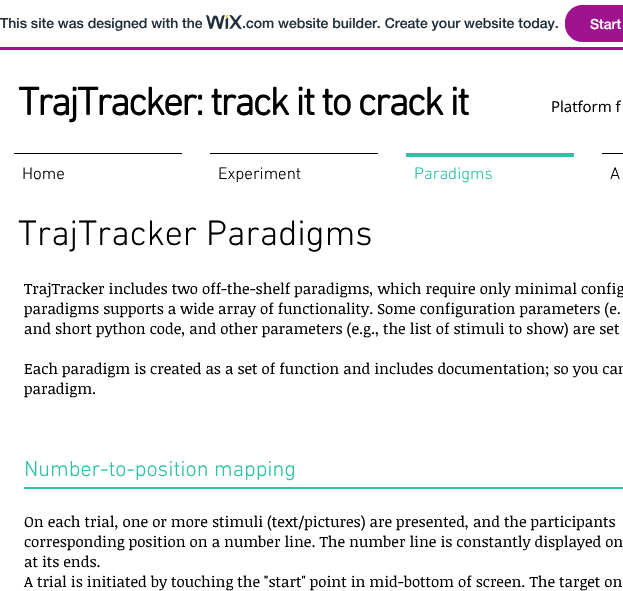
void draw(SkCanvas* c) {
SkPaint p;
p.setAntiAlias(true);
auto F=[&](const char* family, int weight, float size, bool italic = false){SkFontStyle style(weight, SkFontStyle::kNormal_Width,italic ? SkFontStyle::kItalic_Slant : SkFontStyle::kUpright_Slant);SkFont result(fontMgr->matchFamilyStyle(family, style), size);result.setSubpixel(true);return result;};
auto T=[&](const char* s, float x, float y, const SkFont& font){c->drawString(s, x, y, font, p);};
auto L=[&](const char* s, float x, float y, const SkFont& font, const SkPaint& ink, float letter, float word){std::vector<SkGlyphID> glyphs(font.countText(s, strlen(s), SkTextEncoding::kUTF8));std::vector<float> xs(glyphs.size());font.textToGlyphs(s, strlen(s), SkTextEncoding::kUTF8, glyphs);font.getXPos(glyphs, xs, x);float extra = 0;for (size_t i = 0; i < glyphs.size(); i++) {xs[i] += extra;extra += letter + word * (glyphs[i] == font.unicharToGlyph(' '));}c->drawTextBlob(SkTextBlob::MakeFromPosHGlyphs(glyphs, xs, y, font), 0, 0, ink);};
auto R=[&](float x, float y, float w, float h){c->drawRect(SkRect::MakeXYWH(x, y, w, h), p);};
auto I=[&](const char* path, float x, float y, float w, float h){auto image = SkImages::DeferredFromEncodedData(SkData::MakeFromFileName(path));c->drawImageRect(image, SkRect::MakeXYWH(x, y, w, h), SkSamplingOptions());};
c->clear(0xffffffff);
p.setColor(0xffa0138e);
R(0,47,623,3);
auto f1 = F("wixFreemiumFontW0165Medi",500,14);
p.setColor(0xff20303c);
T("This site was designed with the",0,28,f1);
I("1.png",206,15,36,15);
T(".com website builder. Create your website today.",242,28,f1);
p.setColor(0xffa0138e);
c->drawRoundRect(SkRect::MakeXYWH(565.5,5.5,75,36),16.5,16.5,p);
p.setStroke(true);
p.setStrokeWidth(1);
c->drawRoundRect(SkRect::MakeXYWH(565.5,5.5,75,36),16.5,16.5,p);
p.setStroke(false);
p.setColor(0xffffffff);
T("Start",590,29,f1);
auto f2 = F("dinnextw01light",700,40);
p.setColor(0xff000000);
L("TrajTracker: track it to crack it",18,115,f2,p,-2,0);
auto f3 = F("Open Sans",400,15);
T("Platform f",551,112,f3);
R(14,153,168,1);
auto f4 = F("dinnextw01light",300,17);
T("Home",22,179,f4);
R(210,153,168,1);
T("Experiment",218,179,f4);
p.setColor(0xff2bc3a7);
R(406,153,168,4);
T("Paradigms",414,179,f4);
p.setColor(0xff000000);
R(602,153,21,1);
T("A",610,179,f4);
auto f5 = F("dinnextw01light",300,36);
T("TrajTracker Paradigms",18,245,f5);
auto f6 = F("Noticia Text",400,15);
T("TrajTracker includes two off-the-shelf paradigms, which require only minimal config",24,294,f6);
T("paradigms supports a wide array of functionality. Some configuration parameters (e.",24,314,f6);
T("and short python code, and other parameters (e.g., the list of stimuli to show) are set",24,334,f6);
T("Each paradigm is created as a set of function and includes documentation; so you can",24,374,f6);
T("paradigm.",24,394,f6);
auto f7 = F("dinnextw01light",300,22);
p.setColor(0xff2bc3a7);
T("Number-to-position mapping",24,476,f7);
R(24,487,599,2);
p.setColor(0xff000000);
T("On each trial, one or more stimuli (text/pictures) are presented, and the participants",24,527,f6);
T("corresponding position on a number line. The number line is constantly displayed on",24,547,f6);
T("at its ends.",24,567,f6);
T("A trial is initiated by touching the \"start\" point in mid-bottom of screen. The target on",24,587,f6);
}
